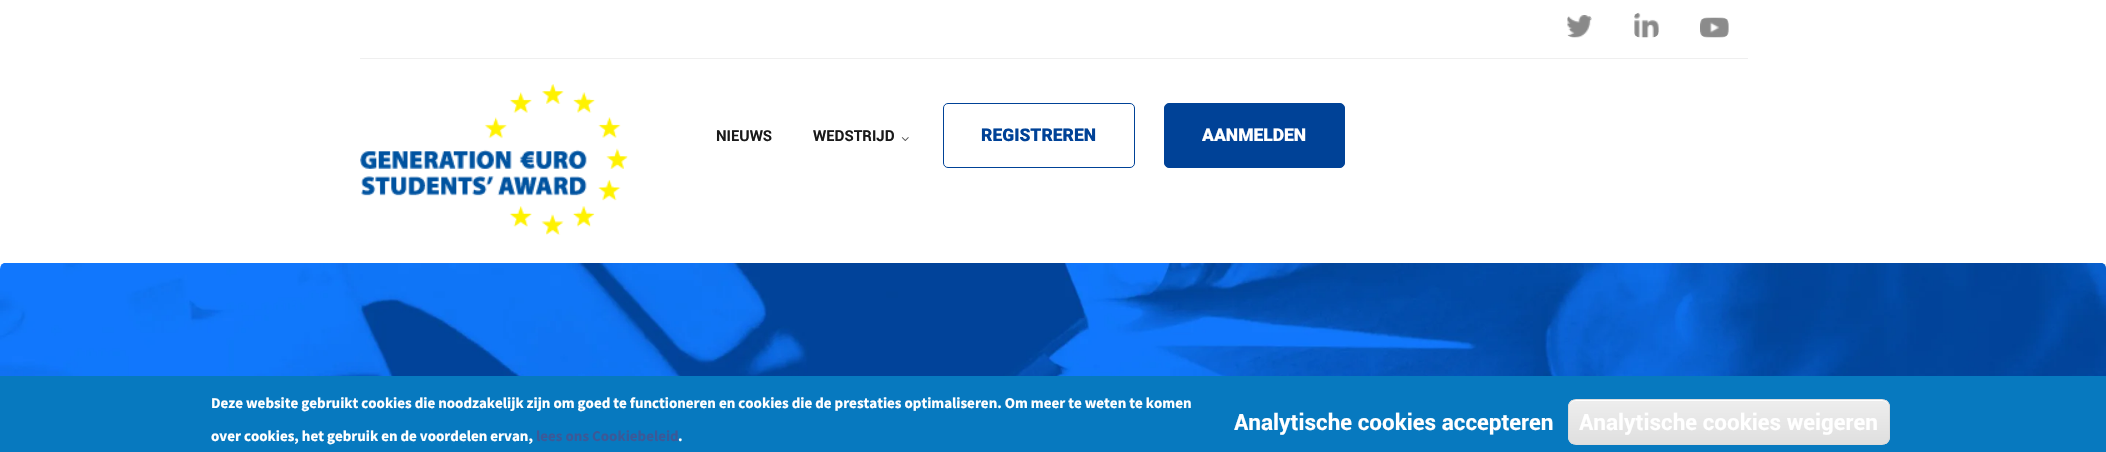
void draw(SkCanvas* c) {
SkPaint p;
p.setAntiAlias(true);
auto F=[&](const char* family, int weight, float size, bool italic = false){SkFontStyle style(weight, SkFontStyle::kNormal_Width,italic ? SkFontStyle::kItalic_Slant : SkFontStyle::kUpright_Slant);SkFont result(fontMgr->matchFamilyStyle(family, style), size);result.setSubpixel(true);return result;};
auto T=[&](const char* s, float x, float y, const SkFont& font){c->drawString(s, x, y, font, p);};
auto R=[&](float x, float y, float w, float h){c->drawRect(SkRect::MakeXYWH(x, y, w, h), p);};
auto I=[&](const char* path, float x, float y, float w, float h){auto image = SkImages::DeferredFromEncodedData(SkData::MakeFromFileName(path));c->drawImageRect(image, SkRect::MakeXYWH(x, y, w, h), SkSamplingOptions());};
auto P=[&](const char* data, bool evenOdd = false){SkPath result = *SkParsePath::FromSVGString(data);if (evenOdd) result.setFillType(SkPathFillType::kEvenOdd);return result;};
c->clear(0xffffffff);
p.setColor(0xffefefef);
R(360,58,1388,1);
I("1.png",1567,15,25,23);
I("2.png",1634,12,25,26);
I("3.png",1700,17,29,21);
I("4.png",360,84,268,151);
auto f1 = F("Roboto",700,15);
p.setColor(0xff1a1a1a);
T("NIEUWS",716,141,f1);
T("WEDSTRIJD",813,141,f1);
I("5.png",901,137,8,4);
p.setStroke(true);
p.setStrokeWidth(1);
p.setColor(0xff004297);
c->drawRoundRect(SkRect::MakeXYWH(943.5,103.5,191,64),4.5,4.5,p);
auto f2 = F("Roboto",900,17.5);
p.setStroke(false);
T("REGISTREREN",981,141,f2);
c->drawRoundRect(SkRect::MakeXYWH(1164.5,103.5,180,64),4.5,4.5,p);
p.setStroke(true);
c->drawRoundRect(SkRect::MakeXYWH(1164.5,103.5,180,64),4.5,4.5,p);
p.setStroke(false);
p.setColor(0xffffffff);
T("AANMELDEN",1202,141,f2);
I("6.png",0,263,2106,113);
p.setColor(0xff0779bf);
R(0,376,2106,76);
auto f3 = F("Source Sans Pro",700,15);
p.setColor(0xffffffff);
T("Deze website gebruikt cookies die noodzakelijk zijn om goed te functioneren en cookies die de prestaties optimaliseren. Om meer te weten te komen",211,408,f3);
T("over cookies, het gebruik en de voordelen ervan,",211,441,f3);
p.setColor(0xff3b5998);
T("lees ons Cookiebeleid",536,441,f3);
p.setColor(0xffffffff);
T(".",678,441,f3);
auto f4 = F("Roboto",700,22.5);
T("Analytische cookies accepteren",1234,430,f4);
c->save();
c->clipPath(P("M1576 399h306c4.5 0 8 3.5 8 8v30c0 4.5-3.5 8-8 8h-306c-4.5 0-8-3.5-8-8v-30c0-4.5 3.5-8 8-8z"),true);
{
const SkColor colors[] = {0xffededed,0xffdfdfdf};
const float stops[] = {.05,1};
const SkPoint ends[] = {{1729,400}, {1729,444}};
p.setShader(SkGradientShader::MakeLinear(ends, colors, stops, 2, SkTileMode::kClamp));
p.setAlpha(255);
}
R(1568,400,322,44);
c->restore();
p.setShader(nullptr);
p.setColor(0xffffffff);
c->drawPath(P("M1575 401h307c4 0 7 3 7 7c0-4-1-8-6-8h-309c-4 1-5 5-5 8c0-4 3-7 6-7z"),p);
p.setStroke(true);
p.setColor(0xffdcdcdc);
c->drawRoundRect(SkRect::MakeXYWH(1568.5,399.5,321,45),7.5,7.5,p);
p.setStroke(false);
p.setColor(0xffffffff);
T("Analytische cookies weigeren",1579,430,f4);
}
